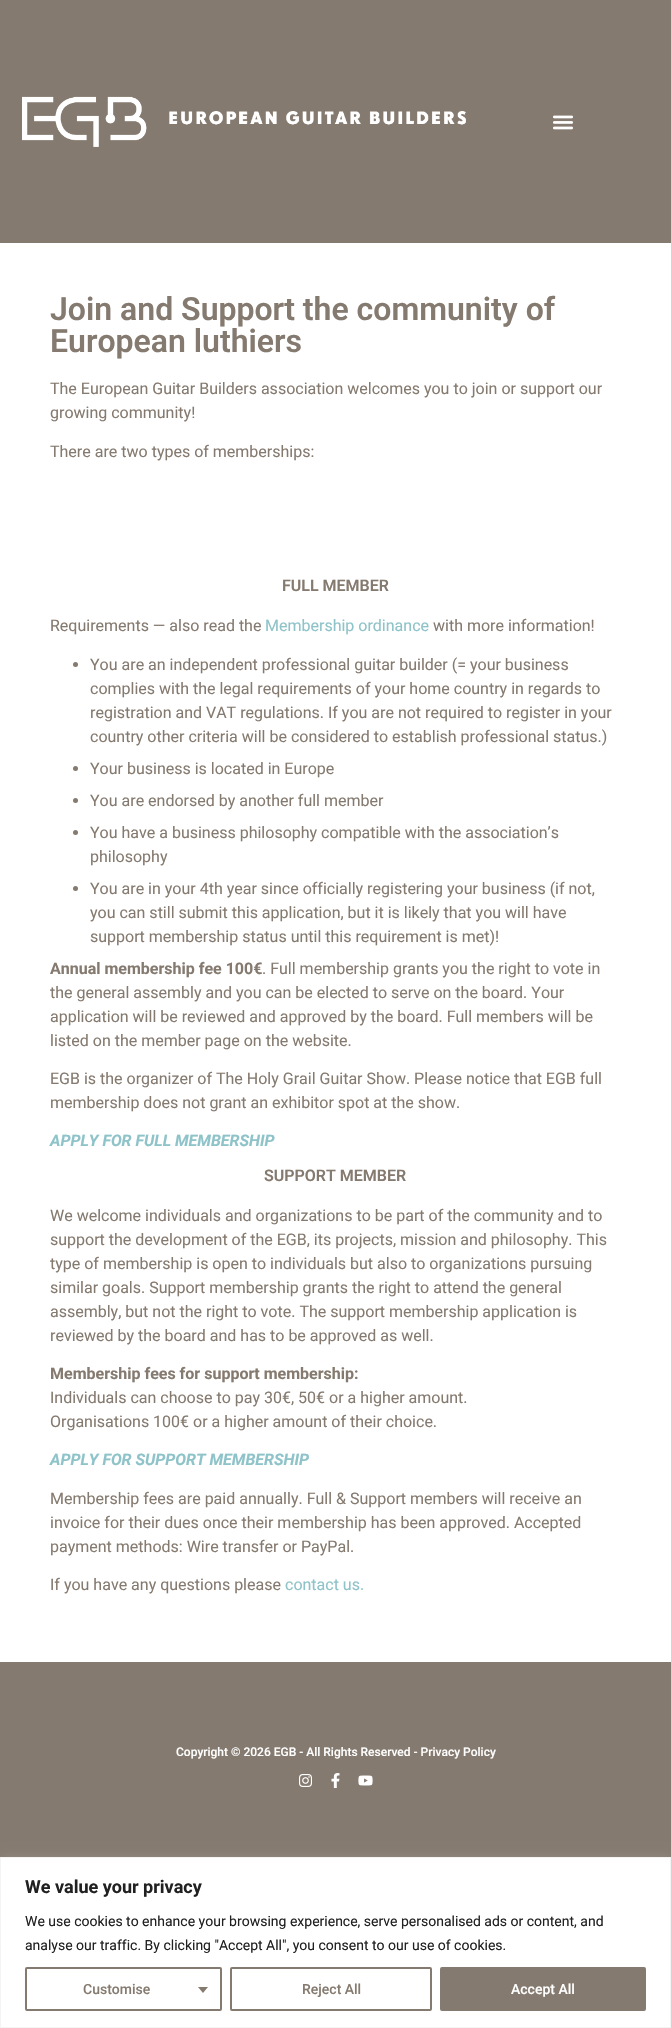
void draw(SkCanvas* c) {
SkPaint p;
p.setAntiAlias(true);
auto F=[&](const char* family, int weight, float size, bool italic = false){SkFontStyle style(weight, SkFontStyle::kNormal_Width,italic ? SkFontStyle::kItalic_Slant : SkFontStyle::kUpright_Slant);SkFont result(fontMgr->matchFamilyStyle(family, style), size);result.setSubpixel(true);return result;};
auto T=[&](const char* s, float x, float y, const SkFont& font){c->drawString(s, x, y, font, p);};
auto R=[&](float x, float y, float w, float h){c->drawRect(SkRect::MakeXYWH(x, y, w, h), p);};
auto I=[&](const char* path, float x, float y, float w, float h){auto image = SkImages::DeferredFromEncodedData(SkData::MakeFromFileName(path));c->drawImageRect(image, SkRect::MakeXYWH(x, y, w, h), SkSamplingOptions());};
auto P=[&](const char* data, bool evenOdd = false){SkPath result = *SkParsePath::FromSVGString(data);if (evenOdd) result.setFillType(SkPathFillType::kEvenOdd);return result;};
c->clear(0xffffffff);
p.setColor(0xff857a6f);
R(0,0,671,243);
I("1.png",22,96,444,51);
I("2.png",553,115,20,15);
auto f1 = F("Roboto",600,32);
T("Join and Support the community of",50,320,f1);
T("European luthiers",50,352,f1);
auto f2 = F("Roboto",400,16);
T("The European Guitar Builders association welcomes you to join or support our",50,394,f2);
T("growing community!",50,418,f2);
T("There are two types of memberships:",50,457,f2);
auto f3 = F("Roboto",600,16);
T("FULL MEMBER",282,591,f3);
T("Requirements — also read the",50,631,f2);
p.setColor(0xff8ec3c9);
T("Membership ordinance",265,631,f2);
p.setColor(0xff857a6f);
T("with more information!",433,631,f2);
c->drawCircle(75.5,664.5,2.5,p);
T("You are an independent professional guitar builder (= your business",90,670,f2);
T("complies with the legal requirements of your home country in regards to",90,694,f2);
T("registration and VAT regulations. If you are not required to register in your",90,718,f2);
T("country other criteria will be considered to establish professional status.)",90,742,f2);
c->drawCircle(75.5,768.5,2.5,p);
T("Your business is located in Europe",90,774,f2);
c->drawCircle(75.5,800.5,2.5,p);
T("You are endorsed by another full member",90,806,f2);
c->drawCircle(75.5,832.5,2.5,p);
T("You have a business philosophy compatible with the association’s",90,838,f2);
T("philosophy",90,862,f2);
c->drawCircle(75.5,888.5,2.5,p);
T("You are in your 4th year since officially registering your business (if not,",90,894,f2);
T("you can still submit this application, but it is likely that you will have",90,918,f2);
T("support membership status until this requirement is met)!",90,942,f2);
auto f4 = F("Roboto",700,16);
T("Annual membership fee 100€",50,974,f4);
T(". Full membership grants you the right to vote in",262,974,f2);
T("the general assembly and you can be elected to serve on the board. Your",50,998,f2);
T("application will be reviewed and approved by the board. Full members will be",50,1022,f2);
T("listed on the member page on the website.",50,1046,f2);
T("EGB is the organizer of The Holy Grail Guitar Show. Please notice that EGB full",50,1084,f2);
T("membership does not grant an exhibitor spot at the show.",50,1108,f2);
auto f5 = F("Roboto",700,16,true);
p.setColor(0xff8ec3c9);
T("APPLY FOR FULL MEMBERSHIP",50,1146,f5);
p.setColor(0xff857a6f);
T("SUPPORT MEMBER",264,1181,f3);
T("We welcome individuals and organizations to be part of the community and to",50,1221,f2);
T("support the development of the EGB, its projects, mission and philosophy. This",50,1245,f2);
T("type of membership is open to individuals but also to organizations pursuing",50,1269,f2);
T("similar goals. Support membership grants the right to attend the general",50,1293,f2);
T("assembly, but not the right to vote. The support membership application is",50,1317,f2);
T("reviewed by the board and has to be approved as well.",50,1341,f2);
T("Membership fees for support membership:",50,1379,f4);
T("Individuals can choose to pay 30€, 50€ or a higher amount.",50,1403,f2);
T("Organisations 100€ or a higher amount of their choice.",50,1427,f2);
p.setColor(0xff8ec3c9);
T("APPLY FOR SUPPORT MEMBERSHIP",50,1465,f5);
p.setColor(0xff857a6f);
T("Membership fees are paid annually. Full & Support members will receive an",50,1504,f2);
T("invoice for their dues once their membership has been approved. Accepted",50,1528,f2);
T("payment methods: Wire transfer or PayPal.",50,1552,f2);
T("If you have any questions please",50,1590,f2);
p.setColor(0xff8ec3c9);
T("contact us.",285,1590,f2);
p.setColor(0xff857a6f);
R(0,1662,671,195);
auto f6 = F("Roboto",500,12);
p.setColor(0xffffffff);
T("Copyright © 2026 EGB - All Rights Reserved - Privacy Policy",176,1756,f6);
I("3.png",299,1774,13,13);
I("4.png",331,1773,9,15);
I("5.png",358,1775,15,11);
p.setColor(0x4dacabab);
p.setMaskFilter(SkMaskFilter::MakeBlur(kNormal_SkBlurStyle, 5));
c->drawRect(SkRect::MakeXYWH(0,1856,671,171),p);
p.setMaskFilter(nullptr);
p.setColor(0xffffffff);
c->drawRect(SkRect::MakeXYWH(.5,1857.5,670,170),p);
p.setStroke(true);
p.setStrokeWidth(1);
p.setColor(0xfff4f4f4);
c->drawRect(SkRect::MakeXYWH(.5,1857.5,670,170),p);
auto f7 = F("Roboto",700,18);
p.setStroke(false);
p.setColor(0xff212121);
T("We value your privacy",25,1893,f7);
auto f8 = F("Roboto",400,14);
T("We use cookies to enhance your browsing experience, serve personalised ads or content, and",25,1926,f8);
T("analyse our traffic. By clicking \"Accept All\", you consent to our use of cookies.",25,1950,f8);
p.setStroke(true);
p.setStrokeWidth(2);
p.setColor(0xff857a6f);
c->drawRoundRect(SkRect::MakeXYWH(26,1968,195,42),1,1,p);
auto f9 = F("Roboto",500,14);
p.setStroke(false);
T("Customise",83,1994,f9);
c->drawPath(P("M198 1987h10l-5 6z"),p);
p.setStroke(true);
c->drawRoundRect(SkRect::MakeXYWH(231,1968,200,42),1,1,p);
p.setStroke(false);
T("Reject All",302,1994,f9);
c->drawRoundRect(SkRect::MakeXYWH(441,1968,204,42),1,1,p);
p.setStroke(true);
c->drawRoundRect(SkRect::MakeXYWH(441,1968,204,42),1,1,p);
p.setStroke(false);
p.setColor(0xffffffff);
T("Accept All",511,1994,f9);
}
